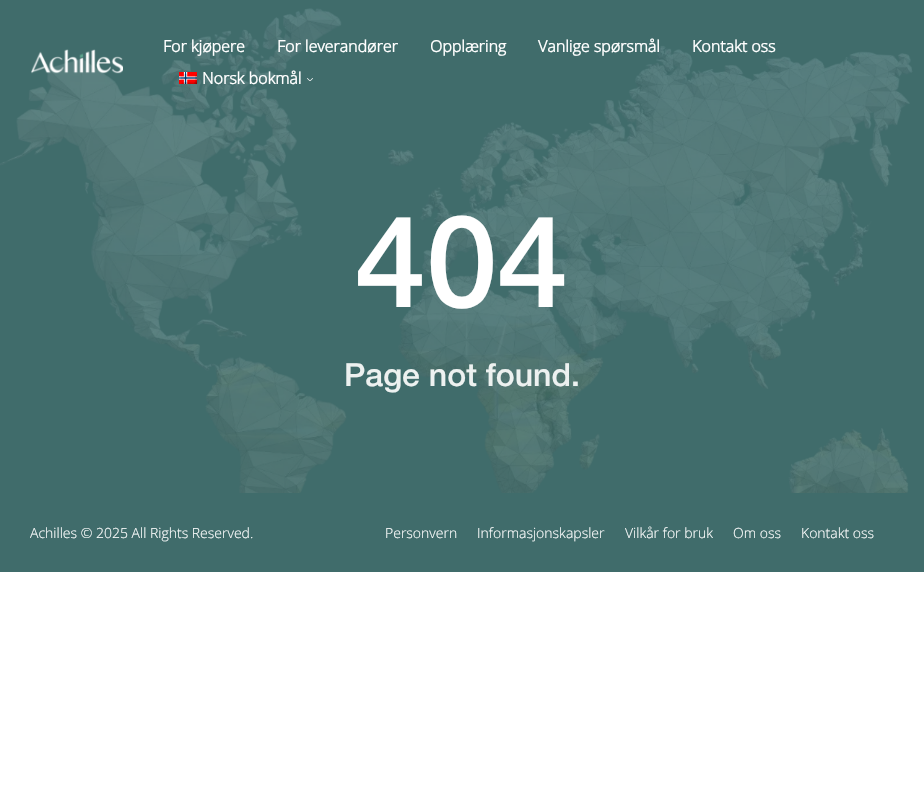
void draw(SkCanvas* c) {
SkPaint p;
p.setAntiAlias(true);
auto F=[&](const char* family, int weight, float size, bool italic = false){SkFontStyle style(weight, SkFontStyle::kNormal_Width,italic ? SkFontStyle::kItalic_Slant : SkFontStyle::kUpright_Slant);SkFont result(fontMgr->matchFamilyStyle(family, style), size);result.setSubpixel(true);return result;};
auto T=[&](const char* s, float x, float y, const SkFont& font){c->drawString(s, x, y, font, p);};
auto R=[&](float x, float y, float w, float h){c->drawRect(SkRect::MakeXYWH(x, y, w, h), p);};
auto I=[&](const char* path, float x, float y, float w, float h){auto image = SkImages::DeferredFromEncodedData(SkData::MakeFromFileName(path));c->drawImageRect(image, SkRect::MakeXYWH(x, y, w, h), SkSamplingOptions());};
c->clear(0xffffffff);
I("1.png",0,0,924,493);
I("2.png",31,49,92,25);
auto f1 = F("Open Sans",700,16);
p.setColor(0xffffffff);
T("For kjøpere",163,52,f1);
T("For leverandører",277,52,f1);
T("Opplæring",430,52,f1);
T("Vanlige spørsmål",538,52,f1);
T("Kontakt oss",692,52,f1);
I("3.png",179,72,18,12);
T("Norsk bokmål",202,84,f1);
I("4.png",307,78,6,3);
auto f2 = F("Helvetica Neue",500,128);
T("404",355,307,f2);
auto f3 = F("Helvetica Neue",500,32);
p.setColor(0xffedf1f0);
T("Page not found.",344,386,f3);
p.setColor(0xff406c6b);
R(0,493,924,79);
auto f4 = F("Open Sans",300,14);
p.setColor(0xffffffff);
T("Achilles © 2025 All Rights Reserved.",30,538,f4);
T("Personvern",385,538,f4);
T("Informasjonskapsler",477,538,f4);
T("Vilkår for bruk",625,538,f4);
T("Om oss",733,538,f4);
T("Kontakt oss",801,538,f4);
}
